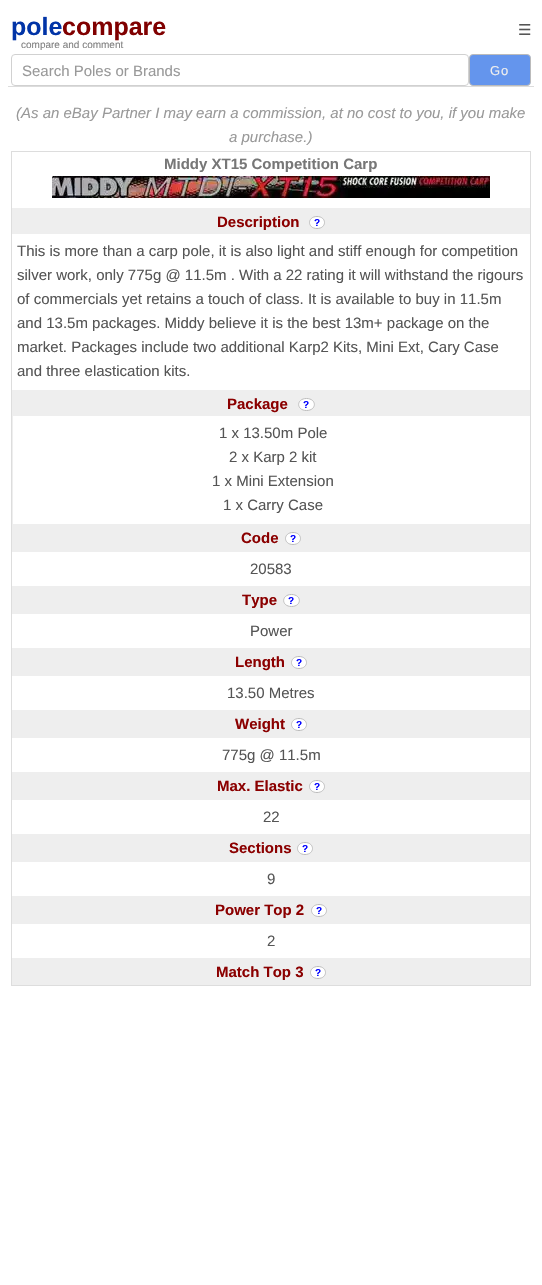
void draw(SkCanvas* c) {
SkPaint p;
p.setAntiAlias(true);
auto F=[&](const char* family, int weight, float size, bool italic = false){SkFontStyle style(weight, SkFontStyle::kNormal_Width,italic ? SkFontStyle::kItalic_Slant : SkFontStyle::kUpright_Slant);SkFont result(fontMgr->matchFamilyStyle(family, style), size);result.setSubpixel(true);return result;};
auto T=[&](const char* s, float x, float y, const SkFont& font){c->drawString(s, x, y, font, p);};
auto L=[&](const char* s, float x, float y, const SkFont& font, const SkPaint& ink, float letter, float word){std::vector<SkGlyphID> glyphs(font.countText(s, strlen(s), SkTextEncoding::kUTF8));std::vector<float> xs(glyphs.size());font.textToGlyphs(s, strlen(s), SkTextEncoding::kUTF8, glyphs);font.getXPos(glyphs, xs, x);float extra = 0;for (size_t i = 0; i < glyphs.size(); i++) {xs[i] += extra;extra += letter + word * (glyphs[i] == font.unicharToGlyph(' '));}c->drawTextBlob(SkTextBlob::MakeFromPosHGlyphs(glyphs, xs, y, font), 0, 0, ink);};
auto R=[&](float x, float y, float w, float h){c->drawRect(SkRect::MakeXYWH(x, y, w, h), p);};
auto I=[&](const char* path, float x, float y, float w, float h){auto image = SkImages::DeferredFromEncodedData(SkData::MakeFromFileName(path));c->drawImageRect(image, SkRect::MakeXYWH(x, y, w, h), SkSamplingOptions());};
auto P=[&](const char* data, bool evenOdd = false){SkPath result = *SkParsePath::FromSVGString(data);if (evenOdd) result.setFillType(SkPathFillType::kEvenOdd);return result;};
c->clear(0xffffffff);
p.setColor(0xffdcdcdc);
R(8,86,526,1);
auto f1 = F("Liberation Sans",700,25);
p.setColor(0xff0134a7);
T("pole",11,35,f1);
p.setColor(0xff800000);
T("compare",62,35,f1);
auto f2 = F("Liberation Sans",400,10);
p.setColor(0xff808080);
T("compare and comment",21,48,f2);
auto f3 = F("DejaVu Sans",400,15);
p.setColor(0xff555555);
T("☰",518,35,f3);
p.setStroke(true);
p.setStrokeWidth(1);
p.setColor(0xffd1d1d1);
c->drawRoundRect(SkRect::MakeXYWH(11.5,54.5,457,31),3.5,3.5,p);
auto f4 = F("Liberation Sans",400,15);
p.setStroke(false);
p.setColor(0xff999999);
T("Search Poles or Brands",22,76,f4);
p.setColor(0xff6495ed);
c->drawRoundRect(SkRect::MakeXYWH(469.5,54.5,61,31),3.5,3.5,p);
p.setStroke(true);
p.setColor(0xffbbbbbb);
c->drawRoundRect(SkRect::MakeXYWH(469.5,54.5,61,31),3.5,3.5,p);
auto f5 = F("Liberation Sans",400,13);
p.setStroke(false);
p.setColor(0xffeeeeee);
L("Go",490,75,f5,p,1,0);
auto f6 = F("Liberation Sans",400,15,true);
p.setColor(0xff999999);
T("(As an eBay Partner I may earn a commission, at no cost to you, if you make",16,118,f6);
T("a purchase.)",229,142,f6);
p.setStroke(true);
p.setColor(0xffdddddd);
c->drawRect(SkRect::MakeXYWH(11.5,151.5,519,834),p);
auto f7 = F("Liberation Sans",700,15);
p.setStroke(false);
p.setColor(0xff777777);
T("Middy XT15 Competition Carp",164,169,f7);
I("1.png",52,176,438,22);
p.setColor(0xffeeeeee);
R(12,208,518,26);
p.setColor(0xff8b0000);
T("Description",217,227,f7);
p.setColor(0xffffffff);
c->drawOval(SkRect::MakeXYWH(309,216,16,13),p);
p.setStroke(true);
p.setColor(0xffbbbbbb);
c->drawPath(P("M317 216.5c10 0 10 12 0 12c-10 0-10-12 0-12z"),p);
auto f8 = F("Liberation Sans",700,10);
p.setStroke(false);
p.setColor(0xff0000ff);
T("?",314,226,f8);
p.setColor(0xff555555);
T("This is more than a carp pole, it is also light and stiff enough for competition",17,256,f4);
T("silver work, only 775g @ 11.5m . With a 22 rating it will withstand the rigours",17,280,f4);
T("of commercials yet retains a touch of class. It is available to buy in 11.5m",17,304,f4);
T("and 13.5m packages. Middy believe it is the best 13m+ package on the",17,328,f4);
T("market. Packages include two additional Karp2 Kits, Mini Ext, Cary Case",17,352,f4);
T("and three elastication kits.",17,376,f4);
p.setColor(0xffeeeeee);
R(12,390,518,26);
p.setColor(0xff8b0000);
T("Package",227,409,f7);
p.setColor(0xffffffff);
c->drawOval(SkRect::MakeXYWH(298,398,17,13),p);
p.setStroke(true);
p.setColor(0xffbbbbbb);
c->drawPath(P("M306.5 398.5c10.5 0 10.5 12 0 12c-10.5 0-10.5-12 0-12z"),p);
p.setStroke(false);
p.setColor(0xff0000ff);
T("?",303,408,f8);
p.setColor(0xffeeeeee);
R(12,416,1,108);
p.setColor(0xff555555);
T("1 x 13.50m Pole",219,438,f4);
T("2 x Karp 2 kit",229,462,f4);
T("1 x Mini Extension",212,486,f4);
T("1 x Carry Case",223,510,f4);
p.setColor(0xffeeeeee);
R(12,524,518,28);
p.setColor(0xff8b0000);
T("Code",241,543,f7);
p.setColor(0xffffffff);
c->drawOval(SkRect::MakeXYWH(285,532,16,13),p);
p.setStroke(true);
p.setColor(0xffbbbbbb);
c->drawPath(P("M293 532.5c10 0 10 12 0 12c-10 0-10-12 0-12z"),p);
p.setStroke(false);
p.setColor(0xff0000ff);
T("?",290,542,f8);
p.setColor(0xff555555);
T("20583",250,574,f4);
p.setColor(0xffeeeeee);
R(12,586,518,28);
p.setColor(0xff8b0000);
T("Type",242,605,f7);
p.setColor(0xffffffff);
c->drawOval(SkRect::MakeXYWH(283,594,17,13),p);
p.setStroke(true);
p.setColor(0xffbbbbbb);
c->drawPath(P("M291.5 594.5c10.5 0 10.5 12 0 12c-10.5 0-10.5-12 0-12z"),p);
p.setStroke(false);
p.setColor(0xff0000ff);
T("?",288,604,f8);
p.setColor(0xff555555);
T("Power",250,636,f4);
p.setColor(0xffeeeeee);
R(12,648,518,28);
p.setColor(0xff8b0000);
T("Length",235,667,f7);
p.setColor(0xffffffff);
c->drawOval(SkRect::MakeXYWH(291,656,16,13),p);
p.setStroke(true);
p.setColor(0xffbbbbbb);
c->drawPath(P("M299 656.5c10 0 10 12 0 12c-10 0-10-12 0-12z"),p);
p.setStroke(false);
p.setColor(0xff0000ff);
T("?",296,666,f8);
p.setColor(0xff555555);
T("13.50 Metres",227,698,f4);
p.setColor(0xffeeeeee);
R(12,710,518,28);
p.setColor(0xff8b0000);
T("Weight",235,729,f7);
p.setColor(0xffffffff);
c->drawOval(SkRect::MakeXYWH(291,718,16,13),p);
p.setStroke(true);
p.setColor(0xffbbbbbb);
c->drawPath(P("M299 718.5c10 0 10 12 0 12c-10 0-10-12 0-12z"),p);
p.setStroke(false);
p.setColor(0xff0000ff);
T("?",296,728,f8);
p.setColor(0xff555555);
T("775g @ 11.5m",222,760,f4);
p.setColor(0xffeeeeee);
R(12,772,518,28);
p.setColor(0xff8b0000);
T("Max. Elastic",217,791,f7);
p.setColor(0xffffffff);
c->drawOval(SkRect::MakeXYWH(309,780,16,13),p);
p.setStroke(true);
p.setColor(0xffbbbbbb);
c->drawPath(P("M317 780.5c10 0 10 12 0 12c-10 0-10-12 0-12z"),p);
p.setStroke(false);
p.setColor(0xff0000ff);
T("?",314,790,f8);
p.setColor(0xff555555);
T("22",263,822,f4);
p.setColor(0xffeeeeee);
R(12,834,518,28);
p.setColor(0xff8b0000);
T("Sections",229,853,f7);
p.setColor(0xffffffff);
c->drawOval(SkRect::MakeXYWH(297,842,16,13),p);
p.setStroke(true);
p.setColor(0xffbbbbbb);
c->drawPath(P("M305 842.5c10 0 10 12 0 12c-10 0-10-12 0-12z"),p);
p.setStroke(false);
p.setColor(0xff0000ff);
T("?",302,852,f8);
p.setColor(0xff555555);
T("9",267,884,f4);
p.setColor(0xffeeeeee);
R(12,896,518,28);
p.setColor(0xff8b0000);
T("Power Top 2",215,915,f7);
p.setColor(0xffffffff);
c->drawOval(SkRect::MakeXYWH(311,904,16,13),p);
p.setStroke(true);
p.setColor(0xffbbbbbb);
c->drawPath(P("M319 904.5c10 0 10 12 0 12c-10 0-10-12 0-12z"),p);
p.setStroke(false);
p.setColor(0xff0000ff);
T("?",316,914,f8);
p.setColor(0xff555555);
T("2",267,946,f4);
p.setColor(0xffeeeeee);
R(12,958,518,27);
p.setColor(0xff8b0000);
T("Match Top 3",216,977,f7);
p.setColor(0xffffffff);
c->drawOval(SkRect::MakeXYWH(310,966,16,13),p);
p.setStroke(true);
p.setColor(0xffbbbbbb);
c->drawPath(P("M318 966.5c10 0 10 12 0 12c-10 0-10-12 0-12z"),p);
p.setStroke(false);
p.setColor(0xff0000ff);
T("?",315,976,f8);
}
